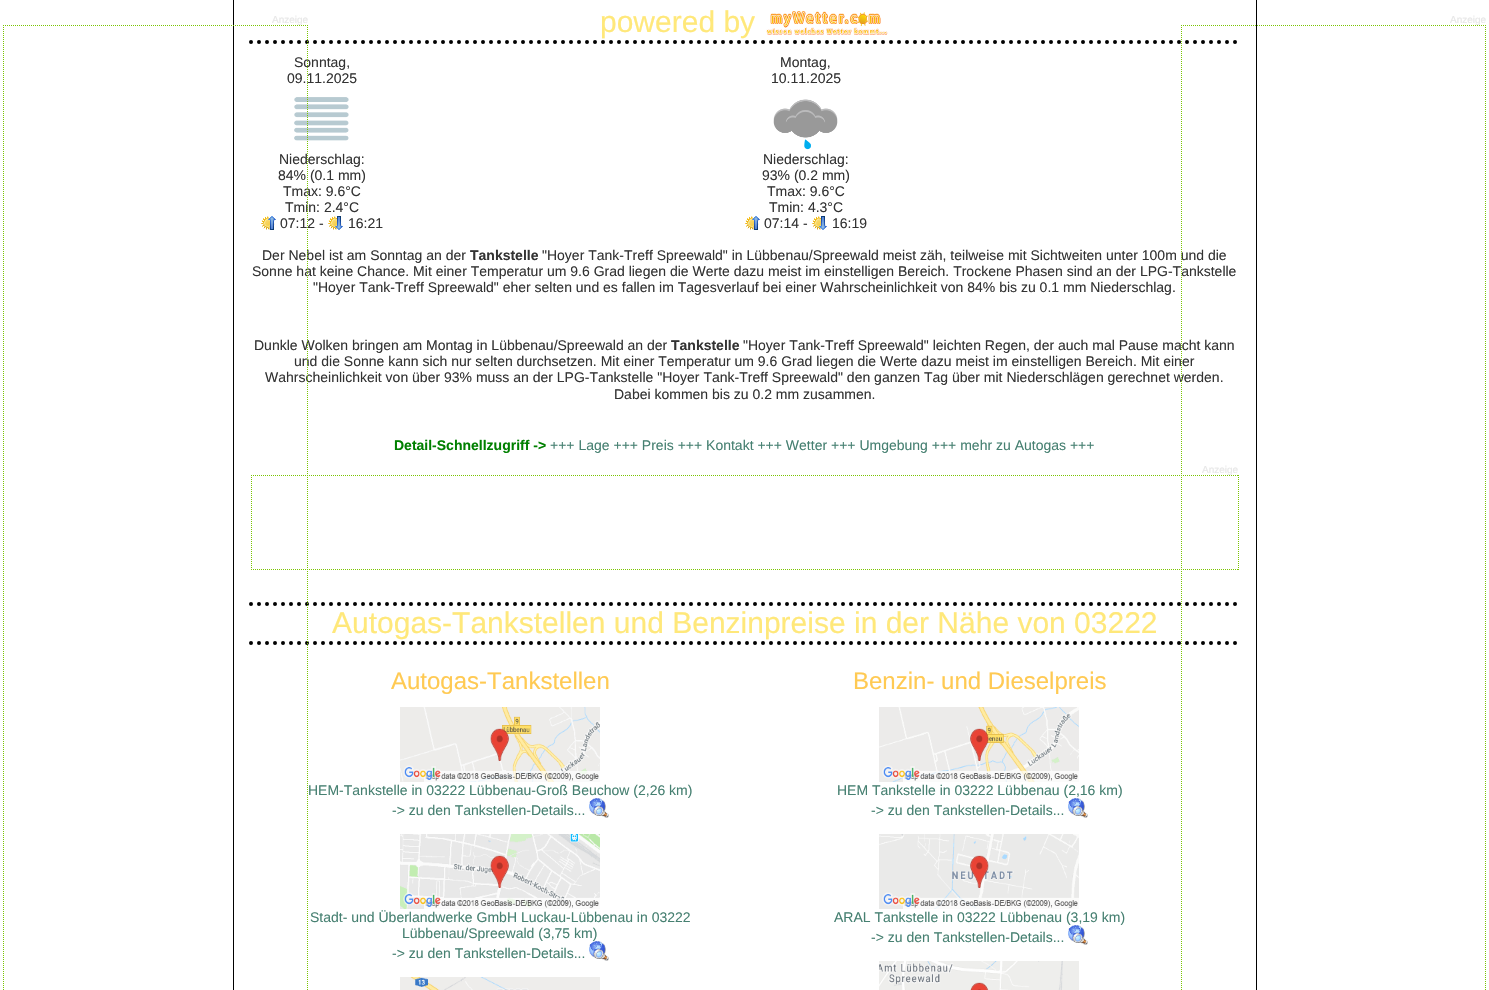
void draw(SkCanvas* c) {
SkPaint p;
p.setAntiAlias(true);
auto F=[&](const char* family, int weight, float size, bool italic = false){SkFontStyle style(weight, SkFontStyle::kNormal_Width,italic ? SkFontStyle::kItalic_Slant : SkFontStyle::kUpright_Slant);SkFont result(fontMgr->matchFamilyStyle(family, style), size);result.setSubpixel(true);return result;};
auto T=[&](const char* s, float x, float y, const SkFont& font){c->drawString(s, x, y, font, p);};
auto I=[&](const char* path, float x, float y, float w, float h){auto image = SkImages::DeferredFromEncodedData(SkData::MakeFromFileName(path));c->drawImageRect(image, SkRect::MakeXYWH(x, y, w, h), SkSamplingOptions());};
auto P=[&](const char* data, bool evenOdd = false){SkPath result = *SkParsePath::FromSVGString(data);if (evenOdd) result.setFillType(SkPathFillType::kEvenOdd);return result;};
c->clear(0xffffffff);
p.setStroke(true);
p.setStrokeWidth(1);
p.setColor(0xff000000);
c->drawRect(SkRect::MakeXYWH(233.5,-.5,1023,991),p);
p.setStrokeWidth(4);
p.setStrokeCap(SkPaint::kRound_Cap);
p.setPathEffect(SkDashPathEffect::Make({{0,8}}, 0));
c->drawPath(P("M251 42h988"),p);
p.setPathEffect(nullptr);
auto f1 = F("Liberation Sans",400,30);
p.setStroke(false);
p.setColor(0xffffe87a);
T("powered by",600,32,f1);
I("1.png",766,11,122,24);
auto f2 = F("Liberation Sans",400,14);
p.setColor(0xff333333);
T("Sonntag,",294,67,f2);
T("09.11.2025",287,83,f2);
I("2.png",294,97,55,44);
T("Niederschlag:",279,164,f2);
T("84% (0.1 mm)",278,180,f2);
T("Tmax: 9.6°C",283,196,f2);
T("Tmin: 2.4°C",285,212,f2);
I("3.png",261,216,15,14);
T("07:12 -",280,228,f2);
I("4.png",328,216,15,14);
T("16:21",348,228,f2);
T("Montag,",780,67,f2);
T("10.11.2025",771,83,f2);
I("5.png",773,99,65,51);
T("Niederschlag:",763,164,f2);
T("93% (0.2 mm)",762,180,f2);
T("Tmax: 9.6°C",767,196,f2);
T("Tmin: 4.3°C",769,212,f2);
I("3.png",745,216,15,14);
T("07:14 -",764,228,f2);
I("4.png",812,216,15,14);
T("16:19",832,228,f2);
T("Der Nebel ist am Sonntag an der",262,260,f2);
auto f3 = F("Liberation Sans",700,14);
T("Tankstelle",470,260,f3);
T("\"Hoyer Tank-Treff Spreewald\" in Lübbenau/Spreewald meist zäh, teilweise mit Sichtweiten unter 100m und die",542,260,f2);
T("Sonne hat keine Chance. Mit einer Temperatur um 9.6 Grad liegen die Werte dazu meist im einstelligen Bereich. Trockene Phasen sind an der LPG-Tankstelle",252,276,f2);
T("\"Hoyer Tank-Treff Spreewald\" eher selten und es fallen im Tagesverlauf bei einer Wahrscheinlichkeit von 84% bis zu 0.1 mm Niederschlag.",313,292,f2);
T("Dunkle Wolken bringen am Montag in Lübbenau/Spreewald an der",254,350,f2);
T("Tankstelle",671,350,f3);
T("\"Hoyer Tank-Treff Spreewald\" leichten Regen, der auch mal Pause macht kann",743,350,f2);
T("und die Sonne kann sich nur selten durchsetzen. Mit einer Temperatur um 9.6 Grad liegen die Werte dazu meist im einstelligen Bereich. Mit einer",294,366,f2);
T("Wahrscheinlichkeit von über 93% muss an der LPG-Tankstelle \"Hoyer Tank-Treff Spreewald\" den ganzen Tag über mit Niederschlägen gerechnet werden.",265,382,f2);
T("Dabei kommen bis zu 0.2 mm zusammen.",614,399,f2);
p.setColor(0xff008000);
T("Detail-Schnellzugriff ->",394,450,f3);
p.setColor(0xff468071);
T("+++ Lage +++ Preis +++ Kontakt +++ Wetter +++ Umgebung +++ mehr zu Autogas +++",550,450,f2);
p.setStroke(true);
p.setStrokeWidth(1);
p.setStrokeCap(SkPaint::kButt_Cap);
p.setColor(0xff7ac503);
p.setPathEffect(SkDashPathEffect::Make({{1,1}}, 0));
c->drawPath(P("M251 475.5h988"),p);
p.setPathEffect(nullptr);
p.setPathEffect(SkDashPathEffect::Make({{1,1}}, 0));
c->drawPath(P("M1238.5 475v95"),p);
p.setPathEffect(nullptr);
auto f4 = F("Liberation Sans",400,10);
p.setStroke(false);
p.setColor(0xffe7e7e7);
T("Anzeige",1202,473,f4);
p.setStroke(true);
p.setColor(0xff7ac503);
p.setPathEffect(SkDashPathEffect::Make({{1,1}}, 0));
c->drawPath(P("M251 569.5h988"),p);
p.setPathEffect(nullptr);
p.setPathEffect(SkDashPathEffect::Make({{1,1}}, 0));
c->drawPath(P("M251.5 475v95"),p);
p.setPathEffect(nullptr);
p.setStrokeWidth(4);
p.setStrokeCap(SkPaint::kRound_Cap);
p.setColor(0xff000000);
p.setPathEffect(SkDashPathEffect::Make({{0,8}}, 0));
c->drawPath(P("M251 604h988"),p);
p.setPathEffect(nullptr);
p.setPathEffect(SkDashPathEffect::Make({{0,8}}, 0));
c->drawPath(P("M251 643h988"),p);
p.setPathEffect(nullptr);
p.setStroke(false);
p.setColor(0xffffe87a);
T("Autogas-Tankstellen und Benzinpreise in der Nähe von 03222",332,633,f1);
auto f5 = F("Liberation Sans",400,24);
p.setColor(0xffffca53);
T("Autogas-Tankstellen",391,689,f5);
I("6.png",400,707,200,75);
p.setColor(0xff468071);
T("HEM-Tankstelle in 03222 Lübbenau-Groß Beuchow (2,26 km)",308,795,f2);
T("-> zu den Tankstellen-Details...",392,815,f2);
I("7.png",589,798,20,20);
I("8.png",400,834,200,75);
T("Stadt- und Überlandwerke GmbH Luckau-Lübbenau in 03222",310,922,f2);
T("Lübbenau/Spreewald (3,75 km)",402,938,f2);
T("-> zu den Tankstellen-Details...",392,958,f2);
I("7.png",589,941,20,20);
I("9.png",400,977,200,13);
p.setColor(0xffffca53);
T("Benzin- und Dieselpreis",853,689,f5);
I("10.png",879,707,200,75);
p.setColor(0xff468071);
T("HEM Tankstelle in 03222 Lübbenau (2,16 km)",837,795,f2);
T("-> zu den Tankstellen-Details...",871,815,f2);
I("11.png",1068,798,20,20);
I("12.png",879,834,200,75);
T("ARAL Tankstelle in 03222 Lübbenau (3,19 km)",834,922,f2);
T("-> zu den Tankstellen-Details...",871,942,f2);
I("11.png",1068,925,20,20);
I("13.png",879,961,200,29);
p.setStroke(true);
p.setStrokeWidth(1);
p.setStrokeCap(SkPaint::kButt_Cap);
p.setColor(0xff7ac503);
p.setPathEffect(SkDashPathEffect::Make({{1,1}}, 0));
c->drawPath(P("M3 25.5h305"),p);
p.setPathEffect(nullptr);
p.setPathEffect(SkDashPathEffect::Make({{1,1}}, 0));
c->drawPath(P("M307.5 25v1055"),p);
p.setPathEffect(nullptr);
p.setStroke(false);
p.setColor(0xffe7e7e7);
T("Anzeige",272,23,f4);
p.setStroke(true);
p.setColor(0xff7ac503);
p.setPathEffect(SkDashPathEffect::Make({{1,1}}, 0));
c->drawPath(P("M3.5 25v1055"),p);
p.setPathEffect(nullptr);
p.setPathEffect(SkDashPathEffect::Make({{1,1}}, 0));
c->drawPath(P("M1181 25.5h305"),p);
p.setPathEffect(nullptr);
p.setPathEffect(SkDashPathEffect::Make({{1,1}}, 0));
c->drawPath(P("M1485.5 25v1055"),p);
p.setPathEffect(nullptr);
p.setStroke(false);
p.setColor(0xffe7e7e7);
T("Anzeige",1450,23,f4);
p.setStroke(true);
p.setColor(0xff7ac503);
p.setPathEffect(SkDashPathEffect::Make({{1,1}}, 0));
c->drawPath(P("M1181.5 25v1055"),p);
p.setPathEffect(nullptr);
}
